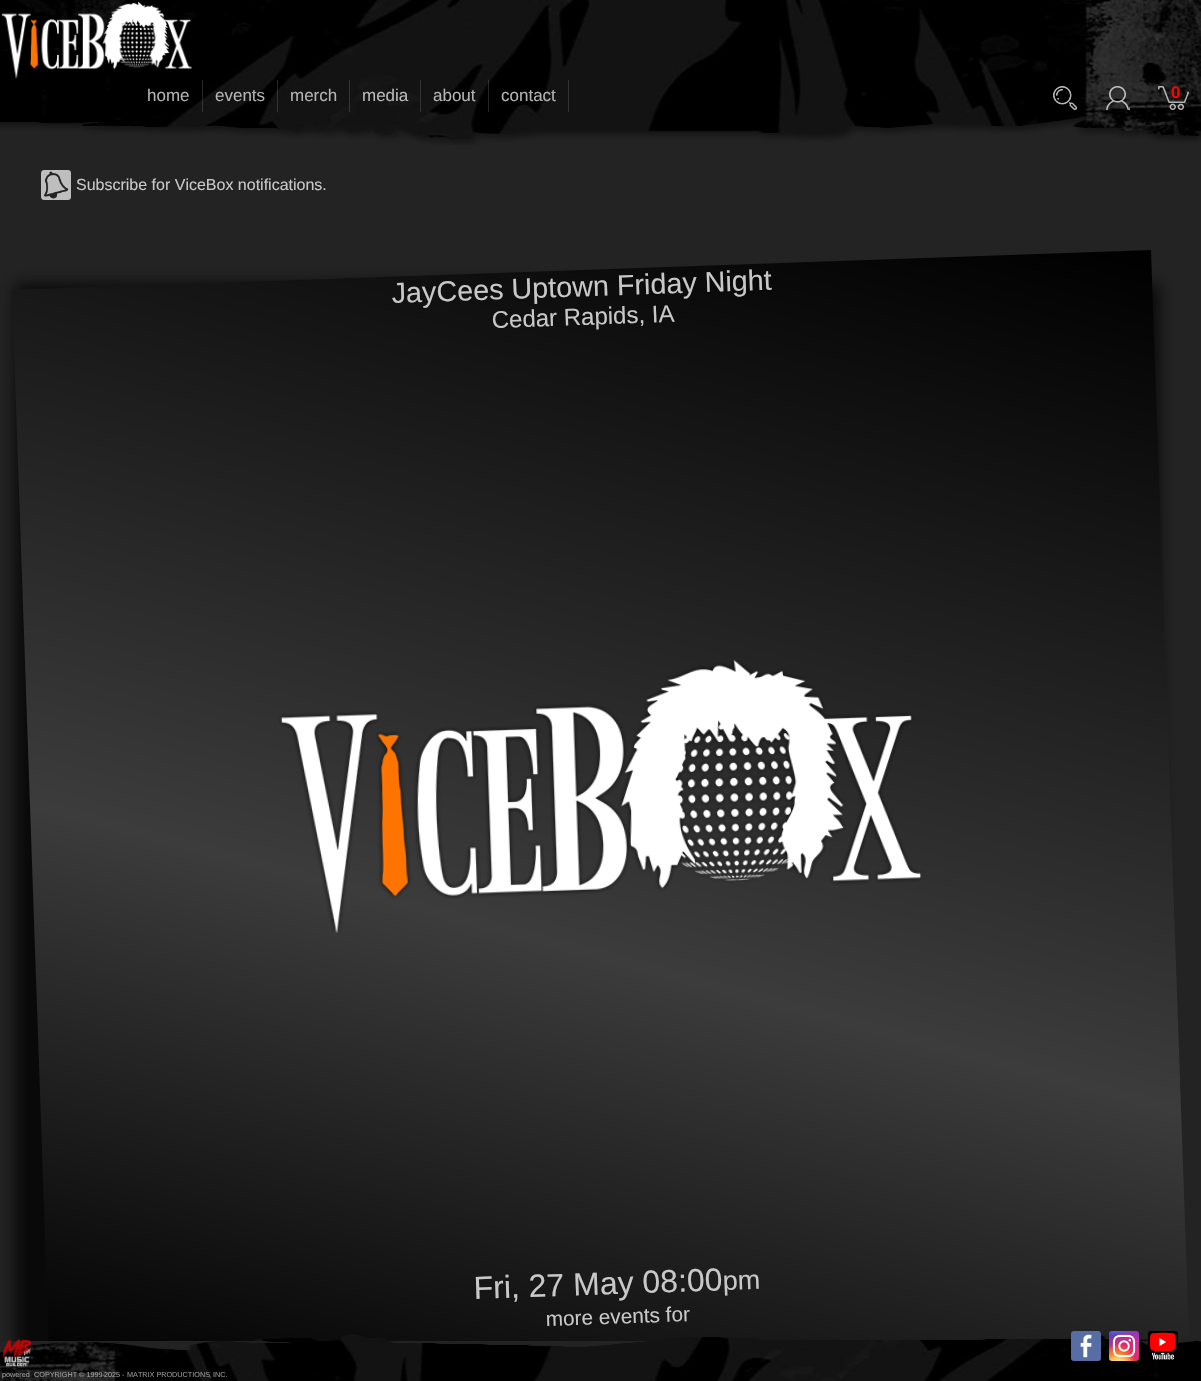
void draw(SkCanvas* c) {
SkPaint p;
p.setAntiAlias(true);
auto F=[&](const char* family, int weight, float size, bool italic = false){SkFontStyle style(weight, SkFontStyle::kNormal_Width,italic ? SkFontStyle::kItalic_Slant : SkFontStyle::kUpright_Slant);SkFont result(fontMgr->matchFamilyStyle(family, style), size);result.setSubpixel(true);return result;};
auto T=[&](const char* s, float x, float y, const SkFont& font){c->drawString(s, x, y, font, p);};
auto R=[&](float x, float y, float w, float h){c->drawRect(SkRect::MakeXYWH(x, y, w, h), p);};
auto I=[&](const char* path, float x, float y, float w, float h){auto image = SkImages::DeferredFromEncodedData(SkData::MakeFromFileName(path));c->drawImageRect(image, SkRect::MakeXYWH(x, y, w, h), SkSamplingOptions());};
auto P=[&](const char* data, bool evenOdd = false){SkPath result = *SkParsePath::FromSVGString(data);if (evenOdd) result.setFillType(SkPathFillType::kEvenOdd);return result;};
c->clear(0xff232323);
I("1.png",0,0,1201,145);
I("2.png",2,1,191,78);
p.setColor(0x40969696);
R(202,80,1,32);
auto f1 = F("Liberation Sans",400,17);
p.setColor(0xffb3b3b3);
T("home",147,101,f1);
p.setColor(0x40969696);
R(277,80,1,32);
p.setColor(0xffb3b3b3);
T("events",215,101,f1);
p.setColor(0x40969696);
R(349,80,1,32);
p.setColor(0xffb3b3b3);
T("merch",290,101,f1);
p.setColor(0x40969696);
R(420,80,1,32);
p.setColor(0xffb9b9b9);
T("media",362,101,f1);
p.setColor(0x40969696);
R(488,80,1,32);
p.setColor(0xffb3b3b3);
T("about",433,101,f1);
p.setColor(0xff343434);
R(568,80,1,32);
p.setColor(0xffb3b3b3);
T("contact",501,101,f1);
I("3.png",1053,86,24,24);
I("4.png",1106,86,24,24);
I("5.png",1158,86,31,24);
auto f2 = F("Liberation Sans",700,17);
p.setColor(0xffff0000);
T("0",1171,98,f2);
I("6.png",41,170,30,30);
auto f3 = F("Liberation Sans",400,16);
p.setColor(0xffc8c8c8);
T("Subscribe for ViceBox notifications.",76,190,f3);
c->save();
c->clipRect(SkRect::MakeXYWH(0,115,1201,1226));
p.setColor(0xbf000000);
p.setMaskFilter(SkMaskFilter::MakeBlur(kNormal_SkBlurStyle, 7.5));
c->drawRect(SkRect::MakeXYWH(15,284,1144,1092),p);
p.setMaskFilter(nullptr);
c->restore();
c->save();
c->clipRect(SkRect::MakeXYWH(0,115,1201,1226));
{
const SkColor colors[] = {0xff000000,0xff3c3c3c,0xff000000};
const float stops[] = {0,.4,1};
const SkPoint ends[] = {{423,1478}, {778,151}};
p.setShader(SkGradientShader::MakeLinear(ends, colors, stops, 3, SkTileMode::kClamp));
p.setAlpha(255);
}
c->drawPath(P("M12 290l1139-40l38 1088l-1139 40z"),p);
c->restore();
auto f4 = F("Liberation Sans",400,28.75);
p.setShader(nullptr);
p.setColor(0xffc8c8c8);
c->save();
c->rotate(-2,392,303);
T("JayCees Uptown Friday Night",392,303,f4);
c->restore();
auto f5 = F("Liberation Sans",400,24);
c->save();
c->rotate(-2,492,328);
T("Cedar Rapids, IA",492,328,f5);
c->restore();
I("7.png",279,660,643,273);
auto f6 = F("Liberation Sans",400,32);
c->save();
c->rotate(-2,474,1299);
T("Fri, 27 May 08:00",474,1299,f6);
c->restore();
auto f7 = F("Liberation Sans",400,27);
c->save();
c->rotate(-2,723,1290);
T("pm",723,1290,f7);
c->restore();
auto f8 = F("Liberation Sans",400,20.75);
c->save();
c->rotate(-2,546,1326);
T("more events for",546,1326,f8);
c->restore();
I("8.png",0,1334,1201,47);
I("9.png",1071,1331,30,30);
I("10.png",1109,1331,30,30);
I("11.png",1148,1331,30,29);
I("12.png",2,1339,30,28);
auto f9 = F("Liberation Sans",400,7.25);
p.setColor(0xff9f9f9f);
T("powered",2,1377,f9);
T("COPYRIGHT © 1999-",34,1377,f9);
T("2025",104,1377,f9);
p.setColor(0xff969696);
T("-",122,1377,f9);
T("MATRIX PRODUCTIONS",127,1377,f9);
T(", INC.",209,1377,f9);
}
